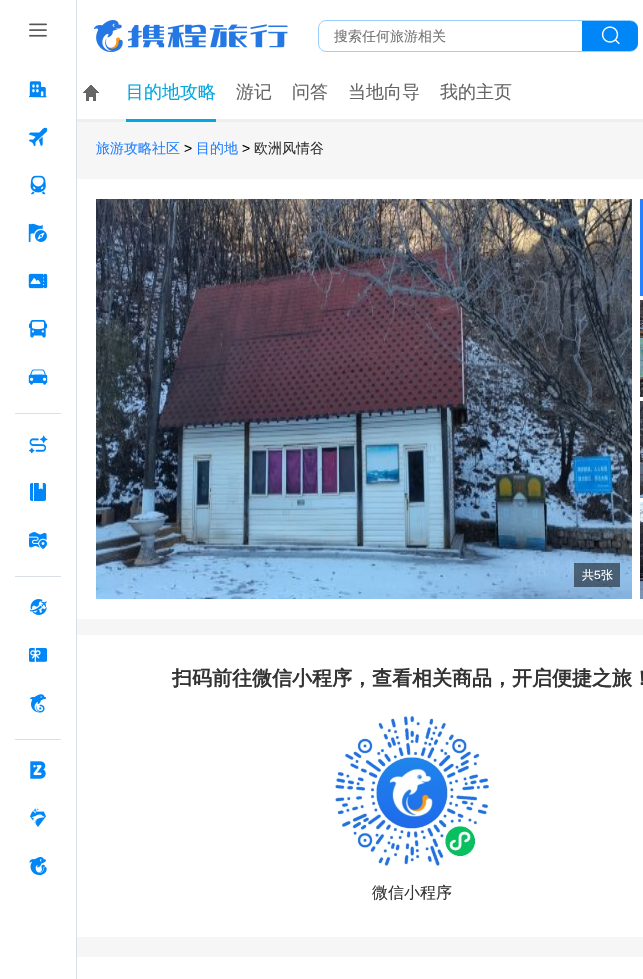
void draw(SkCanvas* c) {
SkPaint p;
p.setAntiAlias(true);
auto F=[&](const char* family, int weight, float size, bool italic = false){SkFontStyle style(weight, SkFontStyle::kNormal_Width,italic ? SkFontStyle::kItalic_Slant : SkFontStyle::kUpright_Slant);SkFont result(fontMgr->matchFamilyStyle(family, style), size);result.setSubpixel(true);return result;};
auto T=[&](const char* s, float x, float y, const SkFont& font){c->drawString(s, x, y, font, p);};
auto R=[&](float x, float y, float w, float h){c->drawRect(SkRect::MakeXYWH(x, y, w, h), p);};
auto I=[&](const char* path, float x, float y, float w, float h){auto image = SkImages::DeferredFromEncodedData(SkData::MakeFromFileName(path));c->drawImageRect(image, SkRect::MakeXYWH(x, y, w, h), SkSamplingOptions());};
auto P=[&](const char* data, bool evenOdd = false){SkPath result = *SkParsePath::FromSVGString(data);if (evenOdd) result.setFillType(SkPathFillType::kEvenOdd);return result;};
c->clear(0xffffffff);
p.setColor(0xffeeeeee);
R(76,119,567,3);
p.setColor(0xffdadfe6);
R(76,0,1,979);
I("1.png",29,23,18,14);
I("2.png",29,81,18,17);
I("3.png",28,127,20,20);
I("4.png",30,175,16,20);
I("5.png",28,223,19,19);
I("6.png",28,273,20,16);
I("7.png",29,320,18,18);
I("8.png",28,369,20,16);
R(15,413,46,1);
I("9.png",29,435,19,19);
I("10.png",30,483,16,18);
I("11.png",29,532,18,17);
R(15,576,46,1);
I("12.png",30,599,17,16);
I("13.png",29,648,18,14);
I("14.png",29,694,17,19);
R(15,739,46,1);
I("15.png",30,761,16,18);
I("16.png",30,808,16,19);
I("17.png",29,857,18,18);
I("18.png",94,20,194,32);
p.setStroke(true);
p.setStrokeWidth(1);
p.setColor(0xff9acefb);
c->drawRoundRect(SkRect::MakeXYWH(318.5,20.5,319,31),7.5,7.5,p);
auto f1 = F("WenQuanYi Zen Hei",500,14);
p.setStroke(false);
p.setColor(0xff757575);
T("搜索任何旅游相关",334,41,f1);
p.setColor(0xff0086f6);
c->drawPath(P("M582 21h48c4.5 0 8 3.5 8 8v14c0 4.5-3.5 8-8 8h-48z"),p);
I("19.png",601,26,19,19);
I("20.png",83,85,16,16);
p.setColor(0xff01a7e1);
R(126,119,90,3);
auto f2 = F("WenQuanYi Zen Hei",500,18);
p.setColor(0xff00a7e0);
T("目的地攻略",126,98,f2);
p.setColor(0xff656565);
T("游记",236,98,f2);
T("问答",292,98,f2);
T("当地向导",348,98,f2);
T("我的主页",440,98,f2);
p.setColor(0xfff6f6f6);
R(77,122,566,835);
p.setColor(0xff2681ff);
T("旅游攻略社区",96,153,f1);
auto f3 = F("Liberation Sans",400,14);
p.setColor(0xff000000);
T(">",184,153,f3);
p.setColor(0xff2681ff);
T("目的地",196,153,f1);
p.setColor(0xff000000);
T(">",242,153,f3);
p.setColor(0xff333333);
T("欧洲风情谷",254,153,f1);
p.setColor(0xffffffff);
R(77,179,566,440);
I("21.png",96,199,536,400);
p.setColor(0x80000000);
R(574,563,46,24);
auto f4 = F("WenQuanYi Zen Hei",500,12);
p.setColor(0xffffffff);
T("共",582,579,f4);
auto f5 = F("Liberation Sans",400,12);
T("5",594,579,f5);
T("张",601,579,f4);
p.setStroke(true);
p.setStrokeWidth(3);
p.setColor(0xff2681ff);
c->drawRect(SkRect::MakeXYWH(641.5,200.5,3,94),p);
I("22.png",640,300,3,97);
I("23.png",640,401,3,97);
I("24.png",640,502,3,97);
p.setStroke(false);
p.setColor(0xffffffff);
R(77,635,566,302);
auto f6 = F("WenQuanYi Zen Hei",700,20);
p.setColor(0xff333333);
T("扫码前往微信小程序，查看相关商品，开启便捷之旅！",172,685,f6);
I("25.png",335,715,154,151);
auto f7 = F("WenQuanYi Zen Hei",500,16);
T("微信小程序",372,898,f7);
}
